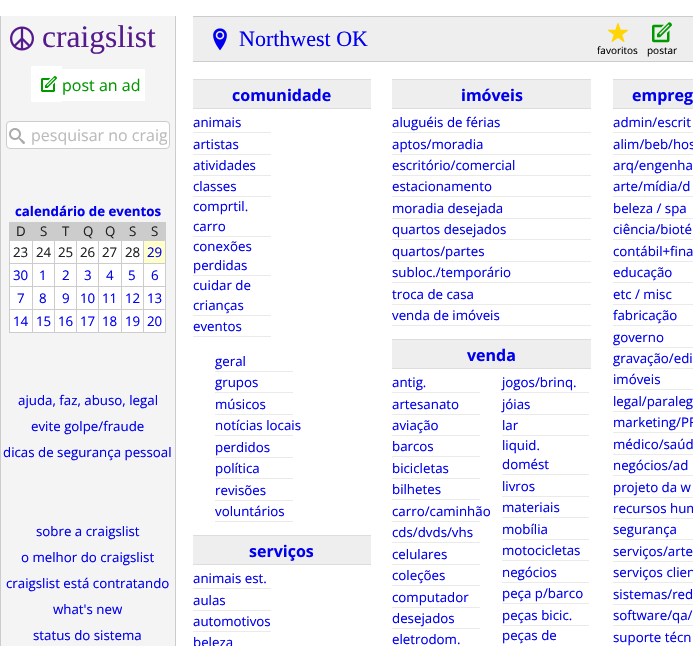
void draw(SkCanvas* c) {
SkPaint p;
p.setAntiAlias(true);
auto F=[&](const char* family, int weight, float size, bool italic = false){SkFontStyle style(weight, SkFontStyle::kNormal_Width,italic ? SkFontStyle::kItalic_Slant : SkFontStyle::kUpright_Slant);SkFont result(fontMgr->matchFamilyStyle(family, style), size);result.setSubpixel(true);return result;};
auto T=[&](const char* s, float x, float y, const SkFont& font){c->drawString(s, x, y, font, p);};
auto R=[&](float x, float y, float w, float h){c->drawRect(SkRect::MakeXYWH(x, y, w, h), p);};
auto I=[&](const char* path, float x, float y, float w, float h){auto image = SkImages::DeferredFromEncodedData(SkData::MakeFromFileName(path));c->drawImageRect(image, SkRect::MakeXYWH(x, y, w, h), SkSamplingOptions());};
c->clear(0xffffffff);
p.setColor(0xfff4f4f4);
R(1,16,174,630);
p.setColor(0xffcccccc);
R(175,16,1,630);
R(0,16,1,630);
I("1.png",10,26,24,25);
auto f1 = F("Liberation Serif",400,31.5);
p.setColor(0xff551a8b);
T("craigslist",42,47,f1);
p.setColor(0xffffffff);
R(31,66,31,36);
I("2.png",41,76,16,16);
R(62,69,83,32);
auto f2 = F("Open Sans",400,16);
p.setColor(0xff009900);
T("post an ad",62,91,f2);
p.setColor(0xffffffff);
c->drawRoundRect(SkRect::MakeXYWH(6.5,121.5,163,27),3.5,3.5,p);
p.setStroke(true);
p.setStrokeWidth(1);
p.setColor(0xffcccccc);
c->drawRoundRect(SkRect::MakeXYWH(6.5,121.5,163,27),3.5,3.5,p);
I("3.png",9,128,16,16);
c->save();
c->clipRect(SkRect::MakeXYWH(31,124,136,22));
p.setStroke(false);
p.setColor(0xffbbbbbb);
T("pesquisar no craig",31,141,f2);
c->restore();
auto f3 = F("Open Sans",700,13.3);
p.setColor(0xff0000ee);
T("calendário de eventos",15,216,f3);
p.setColor(0xffcccccc);
R(9,222,157,110);
auto f4 = F("Open Sans",400,13.3);
p.setColor(0xff222222);
T("D",16,236,f4);
T("S",40,236,f4);
T("T",62,236,f4);
T("Q",83,236,f4);
T("Q",105,236,f4);
T("S",129,236,f4);
T("S",151,236,f4);
p.setColor(0xffffffff);
R(10,241,22,22);
p.setColor(0xff222222);
T("23",13,257,f4);
p.setColor(0xffffffff);
R(33,241,21,22);
p.setColor(0xff222222);
T("24",36,257,f4);
p.setColor(0xffffffff);
R(55,241,21,22);
p.setColor(0xff222222);
T("25",58,257,f4);
p.setColor(0xffffffff);
R(77,241,21,22);
p.setColor(0xff222222);
T("26",80,257,f4);
p.setColor(0xffffffff);
R(99,241,22,22);
p.setColor(0xff222222);
T("27",102,257,f4);
p.setColor(0xffffffff);
R(122,241,21,22);
p.setColor(0xff222222);
T("28",125,257,f4);
p.setColor(0xffffffcc);
R(144,241,21,22);
p.setColor(0xff0000ee);
T("29",147,257,f4);
p.setColor(0xffffffff);
R(10,264,22,22);
p.setColor(0xff0000ee);
T("30",13,280,f4);
p.setColor(0xffffffff);
R(33,264,21,22);
p.setColor(0xff0000ee);
T("1",39,280,f4);
p.setColor(0xffffffff);
R(55,264,21,22);
p.setColor(0xff0000ee);
T("2",62,280,f4);
p.setColor(0xffffffff);
R(77,264,21,22);
p.setColor(0xff0000ee);
T("3",84,280,f4);
p.setColor(0xffffffff);
R(99,264,22,22);
p.setColor(0xff0000ee);
T("4",106,280,f4);
p.setColor(0xffffffff);
R(122,264,21,22);
p.setColor(0xff0000ee);
T("5",128,280,f4);
p.setColor(0xffffffff);
R(144,264,21,22);
p.setColor(0xff0000ee);
T("6",151,280,f4);
p.setColor(0xffffffff);
R(10,287,22,22);
p.setColor(0xff0000ee);
T("7",17,303,f4);
p.setColor(0xffffffff);
R(33,287,21,22);
p.setColor(0xff0000ee);
T("8",39,303,f4);
p.setColor(0xffffffff);
R(55,287,21,22);
p.setColor(0xff0000ee);
T("9",62,303,f4);
p.setColor(0xffffffff);
R(77,287,21,22);
p.setColor(0xff0000ee);
T("10",80,303,f4);
p.setColor(0xffffffff);
R(99,287,22,22);
p.setColor(0xff0000ee);
T("11",102,303,f4);
p.setColor(0xffffffff);
R(122,287,21,22);
p.setColor(0xff0000ee);
T("12",125,303,f4);
p.setColor(0xffffffff);
R(144,287,21,22);
p.setColor(0xff0000ee);
T("13",147,303,f4);
p.setColor(0xffffffff);
R(10,310,22,22);
p.setColor(0xff0000ee);
T("14",13,326,f4);
p.setColor(0xffffffff);
R(33,310,21,22);
p.setColor(0xff0000ee);
T("15",36,326,f4);
p.setColor(0xffffffff);
R(55,310,21,22);
p.setColor(0xff0000ee);
T("16",58,326,f4);
p.setColor(0xffffffff);
R(77,310,21,22);
p.setColor(0xff0000ee);
T("17",80,326,f4);
p.setColor(0xffffffff);
R(99,310,22,22);
p.setColor(0xff0000ee);
T("18",102,326,f4);
p.setColor(0xffffffff);
R(122,310,21,22);
p.setColor(0xff0000ee);
T("19",125,326,f4);
p.setColor(0xffffffff);
R(144,310,21,22);
p.setColor(0xffcccccc);
R(9,332,157,1);
p.setColor(0xff0000ee);
T("20",147,326,f4);
T("ajuda, faz, abuso, legal",18,405,f4);
T("evite golpe/fraude",31,431,f4);
T("dicas de segurança pessoal",3,457,f4);
T("sobre a craigslist",36,536,f4);
T("o melhor do craigslist",21,562,f4);
T("craigslist está contratando",6,588,f4);
T("what's new",53,614,f4);
T("status do sistema",33,640,f4);
p.setColor(0xffeeeeee);
R(193,17,500,44);
p.setColor(0xffcccccc);
R(193,16,500,1);
R(193,61,500,1);
I("4.png",213,28,14,23);
auto f5 = F("Liberation Serif",400,22);
p.setColor(0xff0000ee);
T("Northwest OK",239,46,f5);
I("5.png",608,23,20,19);
auto f6 = F("Open Sans",400,10);
p.setColor(0xff000000);
T("favoritos",597,54,f6);
I("6.png",652,22,20,21);
T("postar",647,54,f6);
p.setColor(0xffeeeeee);
R(193,80,178,28);
p.setColor(0xffdddddd);
R(193,79,178,1);
R(193,108,178,1);
auto f7 = F("Open Sans",700,16);
p.setColor(0xff0000ee);
T("comunidade",232,101,f7);
p.setColor(0xffeaeaea);
R(193,132,78,1);
p.setColor(0xff0000ee);
T("animais",193,127,f4);
p.setColor(0xffeaeaea);
R(193,154,78,1);
p.setColor(0xff0000ee);
T("artistas",193,149,f4);
p.setColor(0xffeaeaea);
R(193,175,78,1);
p.setColor(0xff0000ee);
T("atividades",193,170,f4);
p.setColor(0xffeaeaea);
R(193,196,78,1);
p.setColor(0xff0000ee);
T("classes",193,191,f4);
p.setColor(0xffeaeaea);
R(193,236,78,1);
p.setColor(0xff0000ee);
T("comprtil.",193,211,f4);
T("carro",193,231,f4);
p.setColor(0xffeaeaea);
R(193,275,78,1);
p.setColor(0xff0000ee);
T("conexões",193,251,f4);
T("perdidas",193,270,f4);
p.setColor(0xffeaeaea);
R(193,315,78,1);
p.setColor(0xff0000ee);
T("cuidar de",193,290,f4);
T("crianças",193,310,f4);
p.setColor(0xffeaeaea);
R(193,336,78,1);
p.setColor(0xff0000ee);
T("eventos",193,331,f4);
p.setColor(0xffeaeaea);
R(215,371,78,1);
p.setColor(0xff0000ee);
T("geral",215,366,f4);
p.setColor(0xffeaeaea);
R(215,392,78,1);
p.setColor(0xff0000ee);
T("grupos",215,387,f4);
p.setColor(0xffeaeaea);
R(215,414,78,1);
p.setColor(0xff0000ee);
T("músicos",215,409,f4);
p.setColor(0xffeaeaea);
R(215,435,78,1);
p.setColor(0xff0000ee);
T("notícias locais",215,430,f4);
p.setColor(0xffeaeaea);
R(215,457,78,1);
p.setColor(0xff0000ee);
T("perdidos",215,452,f4);
p.setColor(0xffeaeaea);
R(215,478,78,1);
p.setColor(0xff0000ee);
T("política",215,473,f4);
p.setColor(0xffeaeaea);
R(215,500,78,1);
p.setColor(0xff0000ee);
T("revisões",215,495,f4);
p.setColor(0xffeaeaea);
R(215,521,78,1);
p.setColor(0xff0000ee);
T("voluntários",215,516,f4);
p.setColor(0xffeeeeee);
R(193,536,178,28);
p.setColor(0xffdddddd);
R(193,535,178,1);
R(193,564,178,1);
p.setColor(0xff0000ee);
T("serviços",249,557,f7);
p.setColor(0xffeaeaea);
R(193,588,78,1);
p.setColor(0xff0000ee);
T("animais est.",193,583,f4);
p.setColor(0xffeaeaea);
R(193,610,78,1);
p.setColor(0xff0000ee);
T("aulas",193,605,f4);
p.setColor(0xffeaeaea);
R(193,631,78,1);
p.setColor(0xff0000ee);
T("automotivos",193,626,f4);
T("beleza",193,647,f4);
p.setColor(0xffeeeeee);
R(392,80,199,28);
p.setColor(0xffdddddd);
R(392,79,199,1);
R(392,108,199,1);
p.setColor(0xff0000ee);
T("imóveis",461,101,f7);
p.setColor(0xffeaeaea);
R(392,132,199,1);
p.setColor(0xff0000ee);
T("aluguéis de férias",392,127,f4);
p.setColor(0xffeaeaea);
R(392,154,199,1);
p.setColor(0xff0000ee);
T("aptos/moradia",392,149,f4);
p.setColor(0xffeaeaea);
R(392,175,199,1);
p.setColor(0xff0000ee);
T("escritório/comercial",392,170,f4);
p.setColor(0xffeaeaea);
R(392,196,199,1);
p.setColor(0xff0000ee);
T("estacionamento",392,191,f4);
p.setColor(0xffeaeaea);
R(392,218,199,1);
p.setColor(0xff0000ee);
T("moradia desejada",392,213,f4);
p.setColor(0xffeaeaea);
R(392,239,199,1);
p.setColor(0xff0000ee);
T("quartos desejados",392,234,f4);
p.setColor(0xffeaeaea);
R(392,261,199,1);
p.setColor(0xff0000ee);
T("quartos/partes",392,256,f4);
p.setColor(0xffeaeaea);
R(392,282,199,1);
p.setColor(0xff0000ee);
T("subloc./temporário",392,277,f4);
p.setColor(0xffeaeaea);
R(392,304,199,1);
p.setColor(0xff0000ee);
T("troca de casa",392,299,f4);
p.setColor(0xffeaeaea);
R(392,325,199,1);
p.setColor(0xff0000ee);
T("venda de imóveis",392,320,f4);
p.setColor(0xffeeeeee);
R(392,340,199,28);
p.setColor(0xffdddddd);
R(392,339,199,1);
R(392,368,199,1);
p.setColor(0xff0000ee);
T("venda",467,361,f7);
p.setColor(0xffeaeaea);
R(392,392,88,1);
p.setColor(0xff0000ee);
T("antig.",392,387,f4);
p.setColor(0xffeaeaea);
R(392,414,88,1);
p.setColor(0xff0000ee);
T("artesanato",392,409,f4);
p.setColor(0xffeaeaea);
R(392,435,88,1);
p.setColor(0xff0000ee);
T("aviação",392,430,f4);
p.setColor(0xffeaeaea);
R(392,456,88,1);
p.setColor(0xff0000ee);
T("barcos",392,451,f4);
p.setColor(0xffeaeaea);
R(392,478,88,1);
p.setColor(0xff0000ee);
T("bicicletas",392,473,f4);
p.setColor(0xffeaeaea);
R(392,499,88,1);
p.setColor(0xff0000ee);
T("bilhetes",392,494,f4);
p.setColor(0xffeaeaea);
R(392,521,88,1);
p.setColor(0xff0000ee);
T("carro/caminhão",392,516,f4);
p.setColor(0xffeaeaea);
R(392,542,88,1);
p.setColor(0xff0000ee);
T("cds/dvds/vhs",392,537,f4);
p.setColor(0xffeaeaea);
R(392,564,88,1);
p.setColor(0xff0000ee);
T("celulares",392,559,f4);
p.setColor(0xffeaeaea);
R(392,585,88,1);
p.setColor(0xff0000ee);
T("coleções",392,580,f4);
p.setColor(0xffeaeaea);
R(392,607,88,1);
p.setColor(0xff0000ee);
T("computador",392,602,f4);
p.setColor(0xffeaeaea);
R(392,628,88,1);
p.setColor(0xff0000ee);
T("desejados",392,623,f4);
T("eletrodom.",392,644,f4);
p.setColor(0xffeaeaea);
R(502,392,87,1);
p.setColor(0xff0000ee);
T("jogos/brinq.",502,387,f4);
p.setColor(0xffeaeaea);
R(502,414,87,1);
p.setColor(0xff0000ee);
T("jóias",502,409,f4);
p.setColor(0xffeaeaea);
R(502,435,87,1);
p.setColor(0xff0000ee);
T("lar",502,430,f4);
p.setColor(0xffeaeaea);
R(502,474,87,1);
p.setColor(0xff0000ee);
T("liquid.",502,450,f4);
T("domést",502,469,f4);
p.setColor(0xffeaeaea);
R(502,496,87,1);
p.setColor(0xff0000ee);
T("livros",502,491,f4);
p.setColor(0xffeaeaea);
R(502,517,87,1);
p.setColor(0xff0000ee);
T("materiais",502,512,f4);
p.setColor(0xffeaeaea);
R(502,539,87,1);
p.setColor(0xff0000ee);
T("mobília",502,534,f4);
p.setColor(0xffeaeaea);
R(502,560,87,1);
p.setColor(0xff0000ee);
T("motocicletas",502,555,f4);
p.setColor(0xffeaeaea);
R(502,582,87,1);
p.setColor(0xff0000ee);
T("negócios",502,577,f4);
p.setColor(0xffeaeaea);
R(502,603,87,1);
p.setColor(0xff0000ee);
T("peça p/barco",502,598,f4);
p.setColor(0xffeaeaea);
R(502,625,87,1);
p.setColor(0xff0000ee);
T("peças bicic.",502,620,f4);
T("peças de",502,640,f4);
p.setColor(0xffeeeeee);
R(613,80,80,28);
p.setColor(0xffdddddd);
R(613,79,80,1);
R(613,108,80,1);
p.setColor(0xff0000ee);
T("empreg",632,101,f7);
p.setColor(0xffeaeaea);
R(613,132,80,1);
p.setColor(0xff0000ee);
T("admin/escrit",613,127,f4);
p.setColor(0xffeaeaea);
R(613,154,80,1);
p.setColor(0xff0000ee);
T("alim/beb/hos",613,149,f4);
p.setColor(0xffeaeaea);
R(613,175,80,1);
p.setColor(0xff0000ee);
T("arq/engenha",613,170,f4);
p.setColor(0xffeaeaea);
R(613,196,80,1);
p.setColor(0xff0000ee);
T("arte/mídia/d",613,191,f4);
p.setColor(0xffeaeaea);
R(613,218,80,1);
p.setColor(0xff0000ee);
T("beleza / spa",613,213,f4);
p.setColor(0xffeaeaea);
R(613,239,80,1);
p.setColor(0xff0000ee);
T("ciência/bioté",613,234,f4);
p.setColor(0xffeaeaea);
R(613,261,80,1);
p.setColor(0xff0000ee);
T("contábil+fina",613,256,f4);
p.setColor(0xffeaeaea);
R(613,282,80,1);
p.setColor(0xff0000ee);
T("educação",613,277,f4);
p.setColor(0xffeaeaea);
R(613,304,80,1);
p.setColor(0xff0000ee);
T("etc / misc",613,299,f4);
p.setColor(0xffeaeaea);
R(613,325,80,1);
p.setColor(0xff0000ee);
T("fabricação",613,320,f4);
p.setColor(0xffeaeaea);
R(613,347,80,1);
p.setColor(0xff0000ee);
T("governo",613,342,f4);
p.setColor(0xffeaeaea);
R(613,368,80,1);
p.setColor(0xff0000ee);
T("gravação/edi",613,363,f4);
p.setColor(0xffeaeaea);
R(613,389,80,1);
p.setColor(0xff0000ee);
T("imóveis",613,384,f4);
p.setColor(0xffeaeaea);
R(613,411,80,1);
p.setColor(0xff0000ee);
T("legal/paraleg",613,406,f4);
p.setColor(0xffeaeaea);
R(613,432,80,1);
p.setColor(0xff0000ee);
T("marketing/PR",613,427,f4);
p.setColor(0xffeaeaea);
R(613,454,80,1);
p.setColor(0xff0000ee);
T("médico/saúd",613,449,f4);
p.setColor(0xffeaeaea);
R(613,475,80,1);
p.setColor(0xff0000ee);
T("negócios/ad",613,470,f4);
p.setColor(0xffeaeaea);
R(613,497,80,1);
p.setColor(0xff0000ee);
T("projeto da w",613,492,f4);
p.setColor(0xffeaeaea);
R(613,518,80,1);
p.setColor(0xff0000ee);
T("recursos hum",613,513,f4);
p.setColor(0xffeaeaea);
R(613,539,80,1);
p.setColor(0xff0000ee);
T("segurança",613,534,f4);
p.setColor(0xffeaeaea);
R(613,561,80,1);
p.setColor(0xff0000ee);
T("serviços/arte",613,556,f4);
p.setColor(0xffeaeaea);
R(613,582,80,1);
p.setColor(0xff0000ee);
T("serviços clien",613,577,f4);
p.setColor(0xffeaeaea);
R(613,604,80,1);
p.setColor(0xff0000ee);
T("sistemas/red",613,599,f4);
p.setColor(0xffeaeaea);
R(613,625,80,1);
p.setColor(0xff0000ee);
T("software/qa/",613,620,f4);
T("suporte técn",613,642,f4);
}
